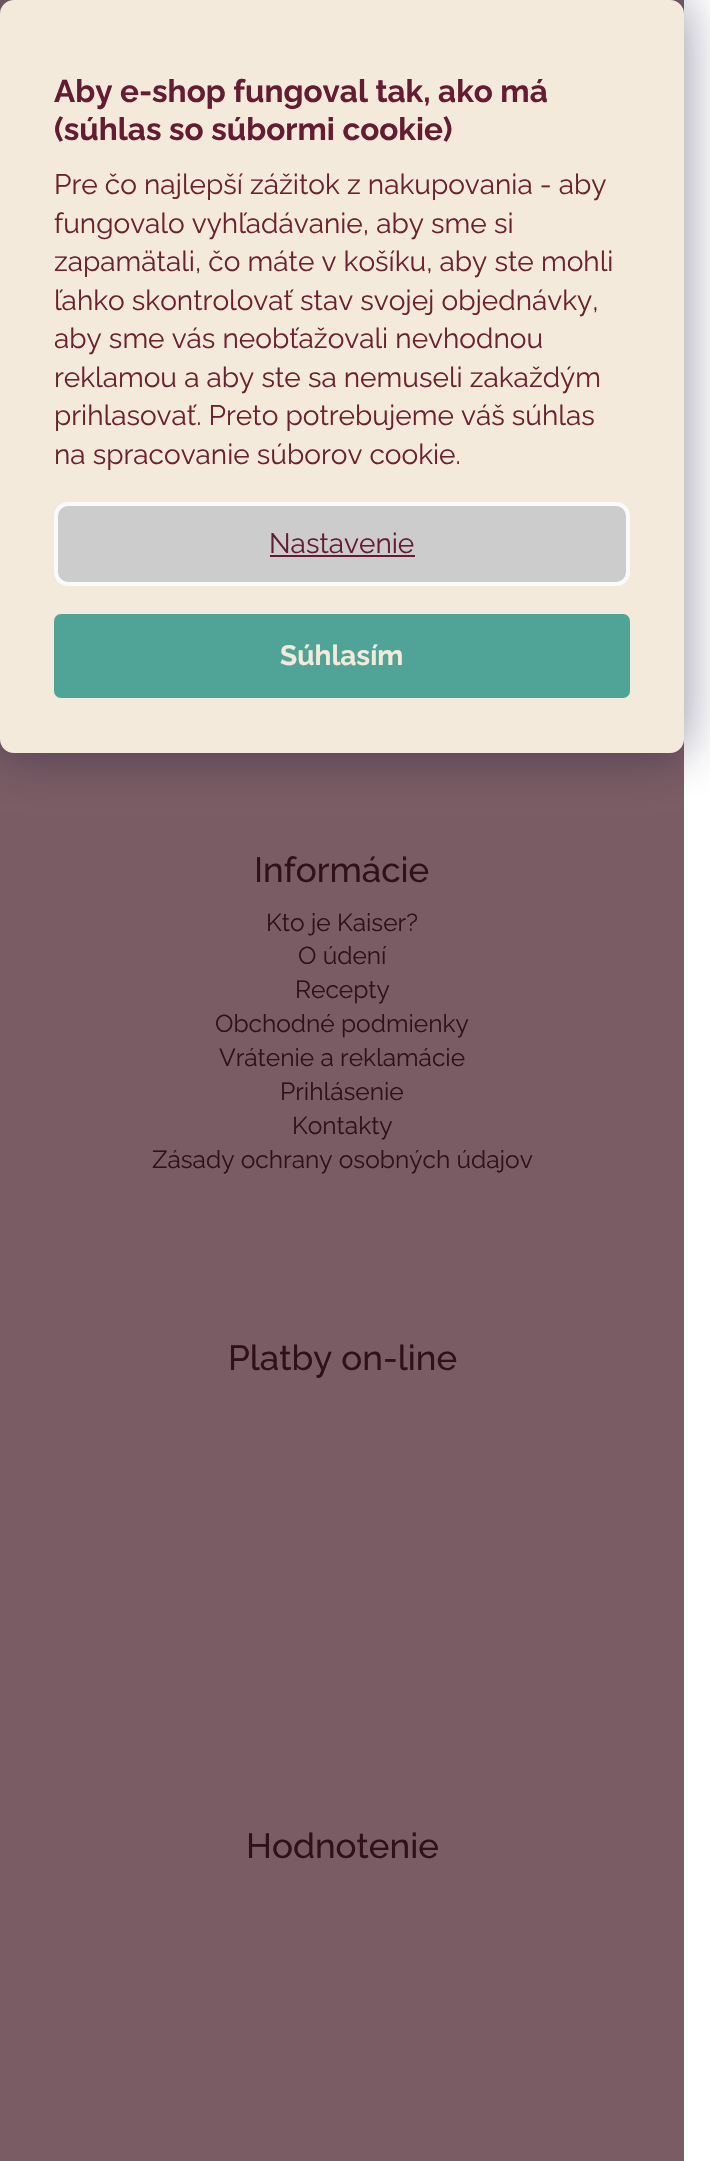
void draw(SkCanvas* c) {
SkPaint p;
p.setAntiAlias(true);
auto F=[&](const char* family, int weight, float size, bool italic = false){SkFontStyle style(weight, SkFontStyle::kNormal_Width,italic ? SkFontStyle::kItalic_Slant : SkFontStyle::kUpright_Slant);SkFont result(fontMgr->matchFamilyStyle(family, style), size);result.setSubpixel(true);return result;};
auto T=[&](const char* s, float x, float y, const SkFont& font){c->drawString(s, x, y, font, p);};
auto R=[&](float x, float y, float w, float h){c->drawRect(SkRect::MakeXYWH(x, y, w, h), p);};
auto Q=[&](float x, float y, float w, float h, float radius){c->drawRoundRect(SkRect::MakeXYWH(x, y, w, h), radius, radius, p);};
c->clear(0xffffffff);
p.setColor(0xff7a5c64);
R(0,0,684,2161);
p.setColor(0x801b1939);
p.setMaskFilter(SkMaskFilter::MakeBlur(kNormal_SkBlurStyle, 26));
c->drawRoundRect(SkRect::MakeXYWH(0,0,684,753),14,14,p);
p.setMaskFilter(nullptr);
p.setColor(0xfff3eadb);
c->drawRoundRect(SkRect::MakeXYWH(1,1,682,751),13,13,p);
p.setStroke(true);
p.setStrokeWidth(2);
c->drawRoundRect(SkRect::MakeXYWH(1,1,682,751),13,13,p);
auto f1 = F("Raleway",700,31.5);
p.setStroke(false);
p.setColor(0xff651b32);
T("Aby e-shop fungoval tak, ako má",54,102,f1);
T("(súhlas so súbormi cookie)",54,140,f1);
auto f2 = F("Raleway",400,28);
p.setColor(0xff6d2130);
T("Pre čo najlepší zážitok z nakupovania - aby",54,194,f2);
T("fungovalo vyhľadávanie, aby sme si",54,233,f2);
T("zapamätali, čo máte v košíku, aby ste mohli",54,271,f2);
T("ľahko skontrolovať stav svojej objednávky,",54,310,f2);
T("aby sme vás neobťažovali nevhodnou",54,348,f2);
T("reklamou a aby ste sa nemuseli zakaždým",54,387,f2);
T("prihlasovať. Preto potrebujeme váš súhlas",54,425,f2);
T("na spracovanie súborov cookie.",54,464,f2);
p.setColor(0xffcccccc);
c->drawRoundRect(SkRect::MakeXYWH(56,504,572,80),12,12,p);
p.setStroke(true);
p.setStrokeWidth(4);
p.setColor(0xfff8fafb);
c->drawRoundRect(SkRect::MakeXYWH(56,504,572,80),12,12,p);
p.setStroke(false);
p.setColor(0xff651b32);
T("Nastavenie",269,553,f2);
R(270,555,145,2);
p.setColor(0xff4fa397);
Q(54,614,576,84,7);
auto f3 = F("Raleway",700,28);
p.setColor(0xfff3eadb);
T("Súhlasím",280,665,f3);
auto f4 = F("Raleway",500,35);
p.setColor(0xff301119);
T("Informácie",254,882,f4);
auto f5 = F("Raleway",400,24.5);
T("Kto je Kaiser?",266,931,f5);
T("O údení",298,964,f5);
T("Recepty",295,998,f5);
T("Obchodné podmienky",215,1032,f5);
T("Vrátenie a reklamácie",219,1066,f5);
T("Prihlásenie",280,1100,f5);
T("Kontakty",292,1134,f5);
T("Zásady ochrany osobných údajov",152,1168,f5);
T("Platby on-line",228,1370,f4);
T("Hodnotenie",246,1858,f4);
}
